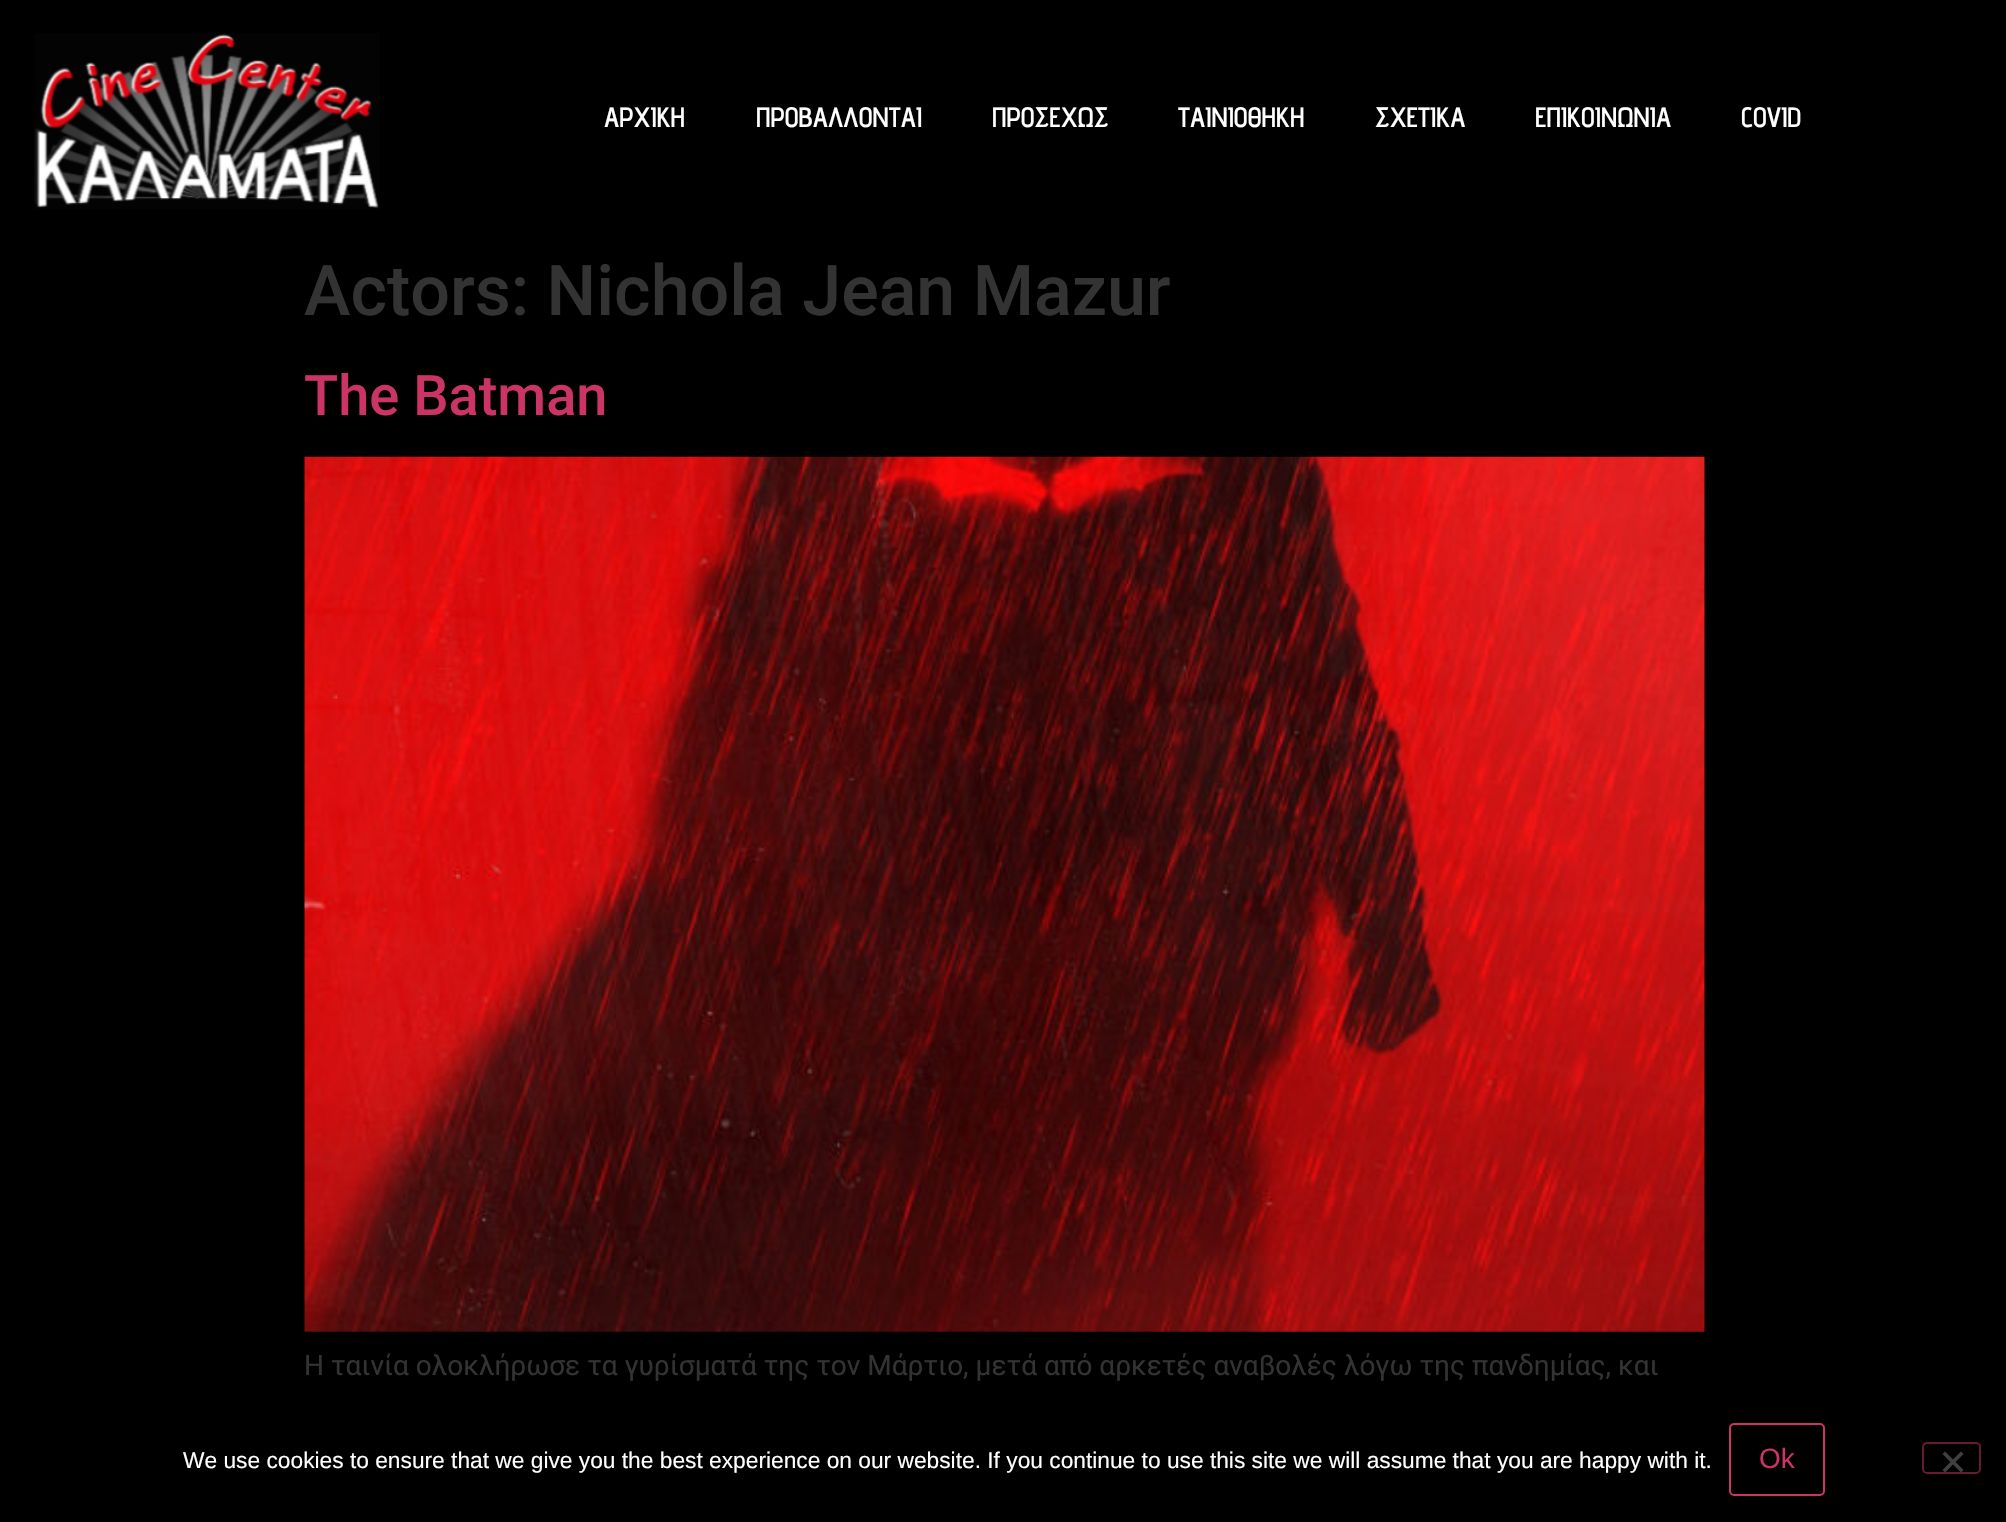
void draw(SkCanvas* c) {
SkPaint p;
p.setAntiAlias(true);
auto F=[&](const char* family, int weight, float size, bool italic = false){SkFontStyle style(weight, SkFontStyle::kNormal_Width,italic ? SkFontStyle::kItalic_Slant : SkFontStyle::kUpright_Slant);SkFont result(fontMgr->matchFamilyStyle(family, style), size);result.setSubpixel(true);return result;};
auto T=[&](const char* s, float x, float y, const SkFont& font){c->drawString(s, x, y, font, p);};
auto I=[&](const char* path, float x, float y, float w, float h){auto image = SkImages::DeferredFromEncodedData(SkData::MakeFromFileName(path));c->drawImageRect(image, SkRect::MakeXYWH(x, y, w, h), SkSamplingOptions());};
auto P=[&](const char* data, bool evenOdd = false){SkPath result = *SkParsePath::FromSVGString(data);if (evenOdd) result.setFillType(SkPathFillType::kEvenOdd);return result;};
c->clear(0xff000000);
I("1.png",34,33,346,176);
auto f1 = F("Advent Pro",600,28);
p.setColor(0xffffffff);
T("ΑΡΧΙΚΗ",604,127,f1);
T("ΠΡΟΒΑΛΛΟΝΤΑΙ",756,127,f1);
T("ΠΡΟΣΕΧΩΣ",992,127,f1);
T("ΤΑΙΝΙΟΘΗΚΗ",1178,127,f1);
T("ΣΧΕΤΙΚΑ",1375,127,f1);
T("ΕΠΙΚΟΙΝΩΝΙΑ",1535,127,f1);
T("COVID",1741,127,f1);
auto f2 = F("Roboto",500,70);
p.setColor(0xff333333);
T("Actors: Nichola Jean Mazur",304,315,f2);
auto f3 = F("Roboto",500,56);
p.setColor(0xffcc3366);
T("The Batman",304,415,f3);
I("2.png",304,456,1401,876);
auto f4 = F("Roboto",400,28);
p.setColor(0xff333333);
T("Η ταινία ολοκλήρωσε τα γυρίσματά της τον Μάρτιο, μετά από αρκετές αναβολές λόγω της πανδημίας, και",304,1375,f4);
auto f5 = F("Liberation Sans",400,22.75);
p.setColor(0xffffffff);
T("We use cookies to ensure that we give you the best experience on our website. If you continue to use this site we will assume that you are happy with it.",183,1468,f5);
p.setStroke(true);
p.setStrokeWidth(2);
p.setColor(0xffcc3366);
c->drawRoundRect(SkRect::MakeXYWH(1730,1424,94,71),4,4,p);
auto f6 = F("Liberation Sans",400,28);
p.setStroke(false);
T("Ok",1759,1468,f6);
p.setStroke(true);
p.setColor(0xff661a33);
c->drawRoundRect(SkRect::MakeXYWH(1923,1443,57,30),4,4,p);
p.setStroke(false);
p.setColor(0xff404040);
c->drawPath(P("M1961 1451.5l2.5 2.5l-18.5 18.5l-2.5-2.5z"),p);
c->drawPath(P("M1942.5 1454l2.5-2.5l18.5 18.5l-2.5 2.5z"),p);
}
